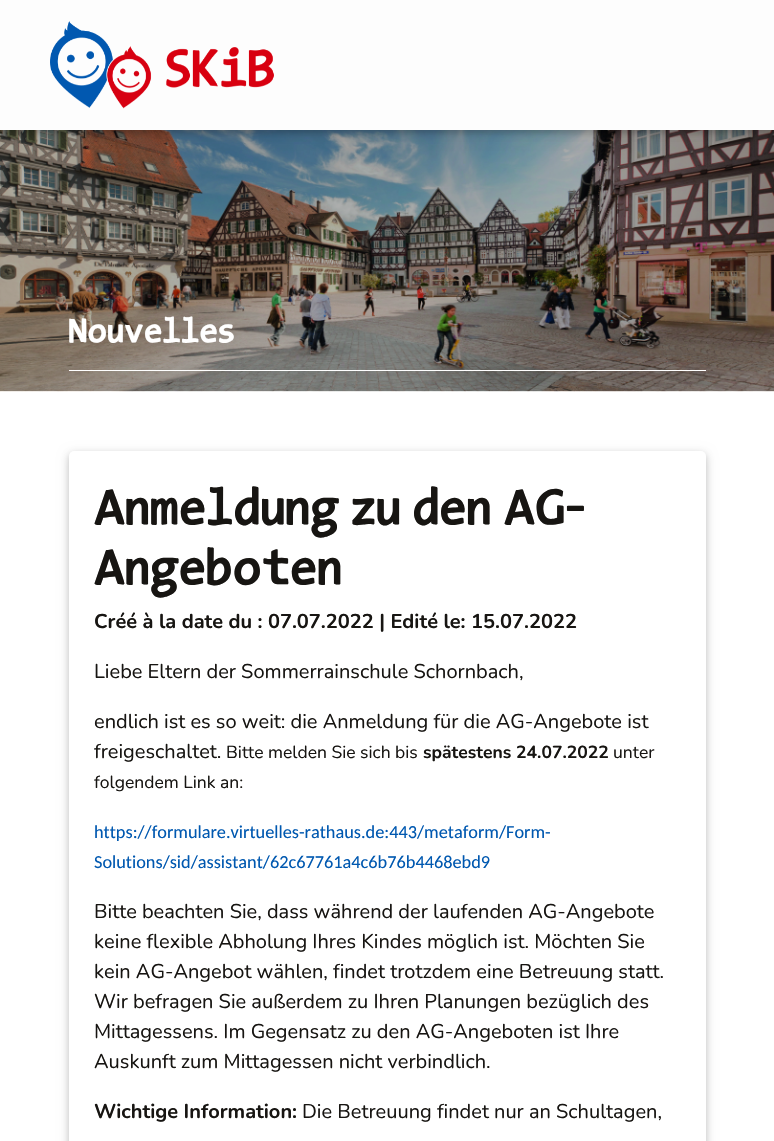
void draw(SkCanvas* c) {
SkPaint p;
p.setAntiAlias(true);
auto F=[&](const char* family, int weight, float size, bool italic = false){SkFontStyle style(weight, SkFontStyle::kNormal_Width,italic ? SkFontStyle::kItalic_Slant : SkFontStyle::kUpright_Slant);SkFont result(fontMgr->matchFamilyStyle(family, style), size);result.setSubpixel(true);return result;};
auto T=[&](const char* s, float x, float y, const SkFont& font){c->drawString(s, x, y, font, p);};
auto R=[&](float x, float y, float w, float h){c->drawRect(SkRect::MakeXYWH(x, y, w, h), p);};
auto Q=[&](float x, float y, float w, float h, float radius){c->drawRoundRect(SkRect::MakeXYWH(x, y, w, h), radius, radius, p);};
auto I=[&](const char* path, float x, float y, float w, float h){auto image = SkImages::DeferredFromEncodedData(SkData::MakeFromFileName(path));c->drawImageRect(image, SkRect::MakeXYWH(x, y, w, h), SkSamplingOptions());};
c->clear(0xffffffff);
I("2.png",0,130,774,262);
p.setColor(0x1f000000);
p.setMaskFilter(SkMaskFilter::MakeBlur(kNormal_SkBlurStyle, 6));
c->drawRect(SkRect::MakeXYWH(0,3,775,130),p);
p.setMaskFilter(nullptr);
p.setColor(0x29000000);
p.setMaskFilter(SkMaskFilter::MakeBlur(kNormal_SkBlurStyle, 3));
c->drawRect(SkRect::MakeXYWH(0,3,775,130),p);
p.setMaskFilter(nullptr);
p.setColor(0xfffdfdfd);
R(0,0,774,130);
I("1.png",50,21,224,88);
auto f1 = F("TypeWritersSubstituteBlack",900,34);
p.setColor(0xffffffff);
T("Nouvelles",69,342,f1);
R(69,370,637,1);
p.setColor(0x1f000000);
p.setMaskFilter(SkMaskFilter::MakeBlur(kNormal_SkBlurStyle, 6));
c->drawRoundRect(SkRect::MakeXYWH(69,454,637,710),5,5,p);
p.setMaskFilter(nullptr);
p.setColor(0x29000000);
p.setMaskFilter(SkMaskFilter::MakeBlur(kNormal_SkBlurStyle, 3));
c->drawRoundRect(SkRect::MakeXYWH(69,454,637,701),5,5,p);
p.setMaskFilter(nullptr);
p.setColor(0xffffffff);
Q(69,451,637,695,5);
auto f2 = F("TypeWritersSubstituteBlack",900,50);
p.setColor(0xff171512);
T("Anmeldung zu den AG-",94,524,f2);
T("Angeboten",94,584,f2);
auto f3 = F("Nunito",700,20);
T("Créé à la date du : 07.07.2022 | Edité le: 15.07.2022",94,628,f3);
auto f4 = F("Nunito",400,20);
T("Liebe Eltern der Sommerrainschule Schornbach,",94,678,f4);
T("endlich ist es so weit: die Anmeldung für die AG-Angebote ist",94,728,f4);
T("freigeschaltet.",94,758,f4);
auto f5 = F("Nunito",400,17.5);
T("Bitte melden Sie sich bis",226,758,f5);
auto f6 = F("Nunito",700,17.5);
T("spätestens 24.07.2022",423,758,f6);
T("unter",613,758,f5);
T("folgendem Link an:",94,788,f5);
auto f7 = F("Carlito",400,18.3);
p.setColor(0xff0058b0);
T("https://formulare.virtuelles-rathaus.de:443/metaform/Form-",94,838,f7);
T("Solutions/sid/assistant/62c67761a4c6b76b4468ebd9",94,868,f7);
p.setColor(0xff171512);
T("Bitte beachten Sie, dass während der laufenden AG-Angebote",94,918,f4);
T("keine flexible Abholung Ihres Kindes möglich ist. Möchten Sie",94,948,f4);
T("kein AG-Angebot wählen, findet trotzdem eine Betreuung statt.",94,978,f4);
T("Wir befragen Sie außerdem zu Ihren Planungen bezüglich des",94,1008,f4);
T("Mittagessens. Im Gegensatz zu den AG-Angeboten ist Ihre",94,1038,f4);
T("Auskunft zum Mittagessen nicht verbindlich.",94,1068,f4);
T("Wichtige Information:",94,1118,f3);
T("Die Betreuung findet nur an Schultagen,",302,1118,f4);
}
